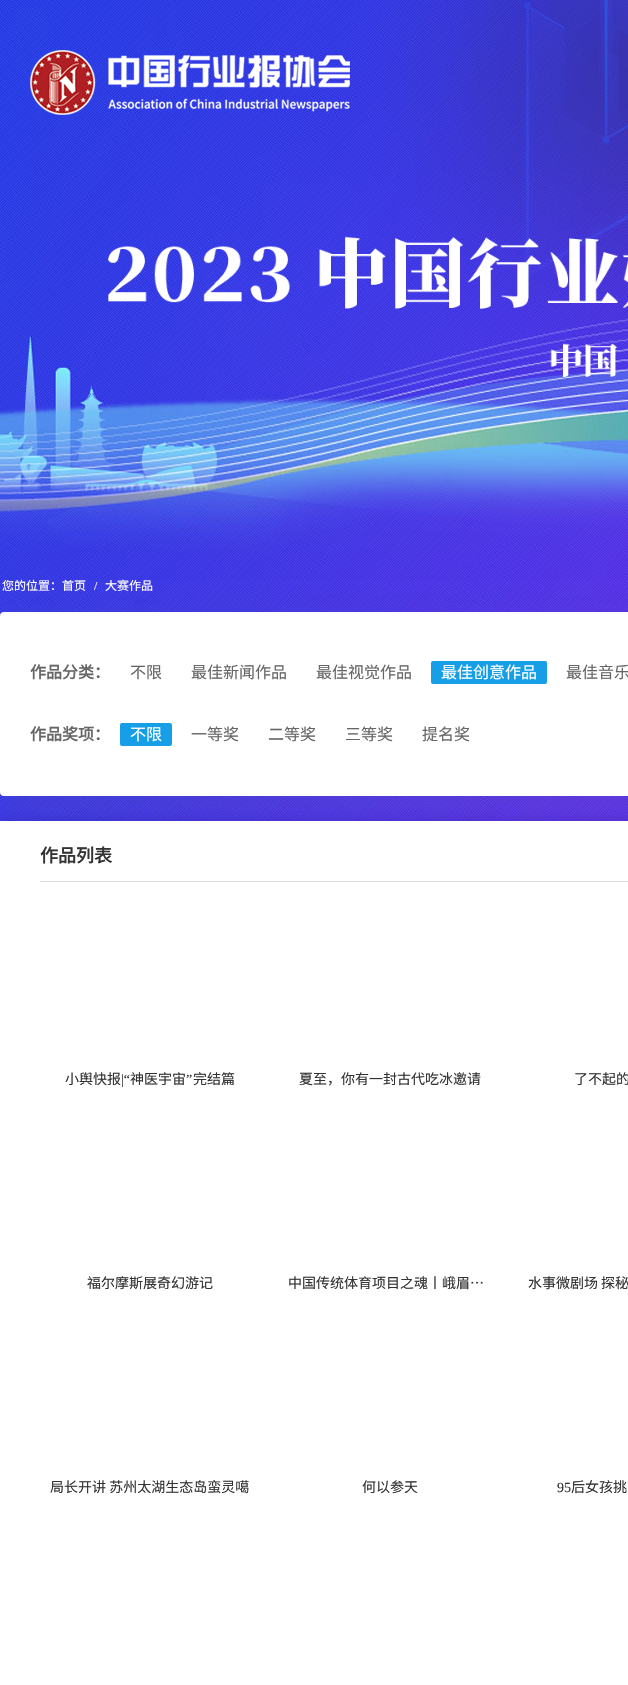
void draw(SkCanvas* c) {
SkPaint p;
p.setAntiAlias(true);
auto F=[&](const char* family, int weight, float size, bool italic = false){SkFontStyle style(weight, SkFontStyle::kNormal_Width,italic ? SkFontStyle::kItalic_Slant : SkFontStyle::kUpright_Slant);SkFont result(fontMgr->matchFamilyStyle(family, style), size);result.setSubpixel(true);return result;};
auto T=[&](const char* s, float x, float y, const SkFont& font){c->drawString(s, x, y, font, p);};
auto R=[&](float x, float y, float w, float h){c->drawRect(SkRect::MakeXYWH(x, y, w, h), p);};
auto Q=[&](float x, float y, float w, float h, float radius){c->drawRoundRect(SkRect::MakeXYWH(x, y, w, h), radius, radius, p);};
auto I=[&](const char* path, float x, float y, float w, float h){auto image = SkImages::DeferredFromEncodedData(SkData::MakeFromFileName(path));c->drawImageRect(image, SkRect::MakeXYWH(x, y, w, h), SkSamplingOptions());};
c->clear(0xffffffff);
I("1.png",0,0,628,821);
I("2.png",30,50,320,65);
I("3.png",108,236,520,141);
p.setColor(0x1c687448);
p.setMaskFilter(SkMaskFilter::MakeBlur(kNormal_SkBlurStyle, 17.5));
c->drawRoundRect(SkRect::MakeXYWH(1,622,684,184),4,4,p);
p.setMaskFilter(nullptr);
auto f1 = F("Noto Sans CJK SC",400,12);
p.setColor(0xffffffff);
T("您的位置：首页",2,590,f1);
auto f2 = F("Liberation Serif",400,12);
T("/",94,590,f2);
T("大赛作品",105,590,f1);
Q(0,612,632,184,4);
auto f3 = F("Noto Sans CJK SC",700,16);
p.setColor(0xff666666);
T("作品分类：",30,678,f3);
auto f4 = F("Noto Sans CJK SC",400,16);
T("不限",130,678,f4);
T("最佳新闻作品",191,678,f4);
T("最佳视觉作品",316,678,f4);
p.setColor(0xff169fe6);
Q(431,661,116,23,2);
p.setColor(0xffffffff);
T("最佳创意作品",441,678,f4);
p.setColor(0xff666666);
T("最佳音乐",566,678,f4);
T("作品奖项：",30,740,f3);
p.setColor(0xff169fe6);
Q(120,723,52,23,2);
p.setColor(0xffffffff);
T("不限",130,740,f4);
p.setColor(0xff666666);
T("一等奖",191,740,f4);
T("二等奖",268,740,f4);
T("三等奖",345,740,f4);
T("提名奖",422,740,f4);
p.setColor(0x26000000);
p.setMaskFilter(SkMaskFilter::MakeBlur(kNormal_SkBlurStyle, 6));
c->drawRect(SkRect::MakeXYWH(0,821,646,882),p);
p.setMaskFilter(nullptr);
p.setColor(0xffffffff);
R(0,821,628,864);
p.setColor(0xffdedede);
R(40,881,588,1);
auto f5 = F("Noto Sans CJK SC",700,18);
p.setColor(0xff333333);
T("作品列表",40,862,f5);
auto f6 = F("Noto Sans CJK SC",400,14);
T("小舆快报",65,1084,f6);
auto f7 = F("Liberation Serif",400,14);
T("|“",121,1084,f7);
T("神医宇宙",130,1084,f6);
T("”",186,1084,f7);
T("完结篇",193,1084,f6);
T("夏至，你有一封古代吃冰邀请",299,1084,f6);
T("了不起的",574,1084,f6);
T("福尔摩斯展奇幻游记",87,1288,f6);
T("中国传统体育项目之魂丨峨眉…",288,1288,f6);
T("水事微剧场",528,1288,f6);
T("探秘",601,1288,f6);
T("局长开讲 苏州太湖生态岛蛮灵噶",50,1492,f6);
T("何以参天",362,1492,f6);
T("95",557,1492,f7);
T("后女孩挑",571,1492,f6);
}
